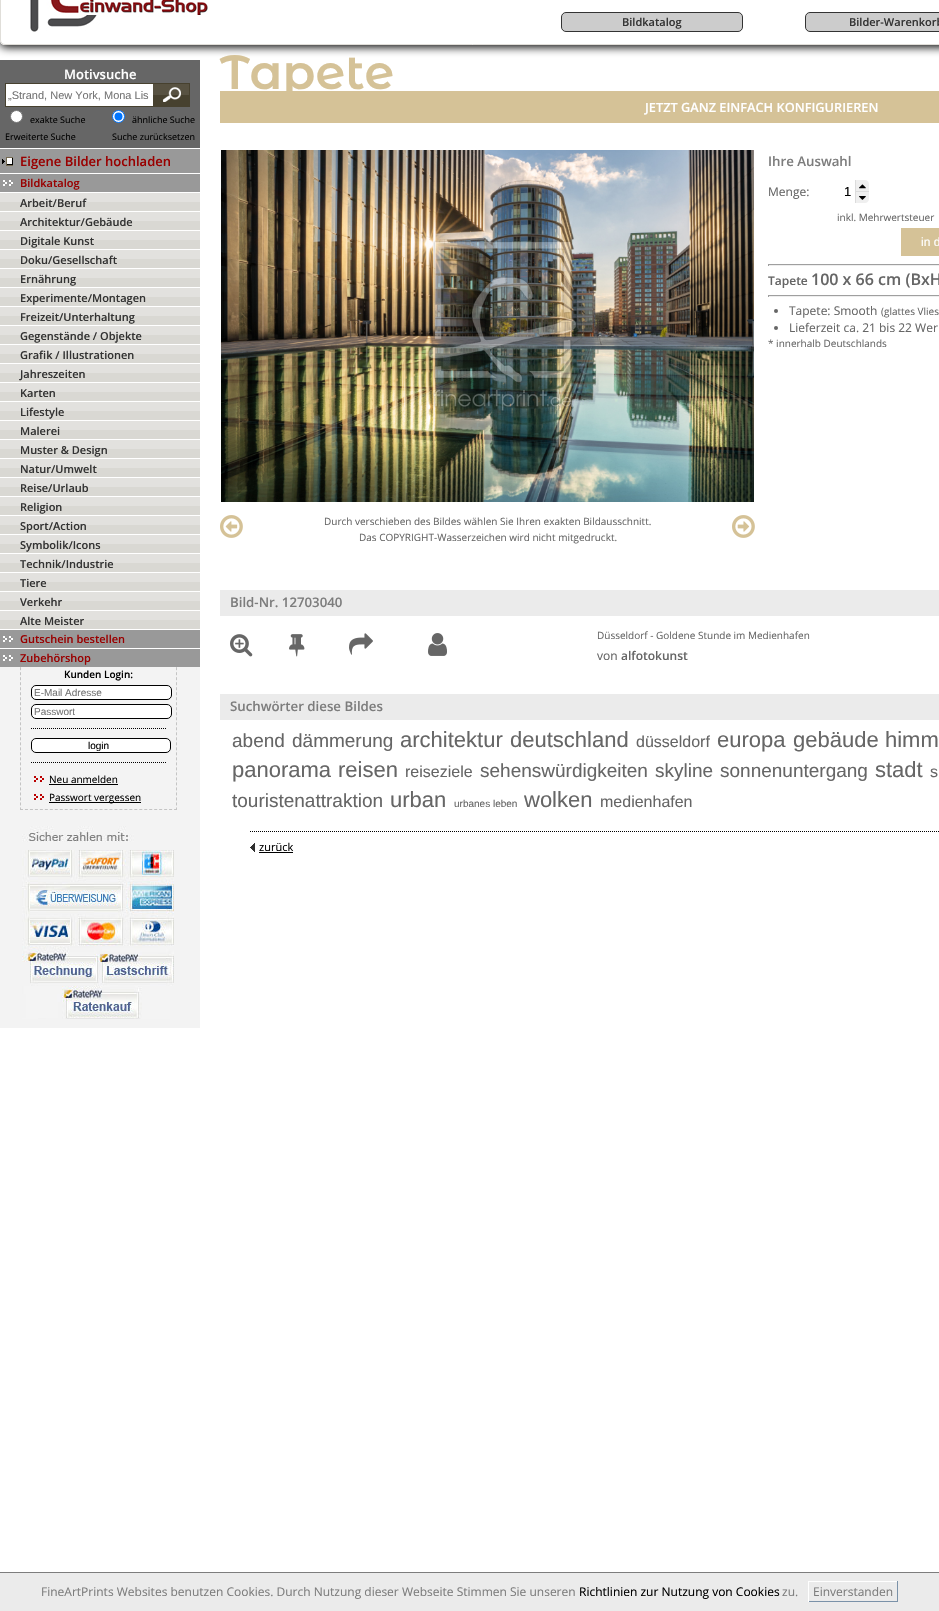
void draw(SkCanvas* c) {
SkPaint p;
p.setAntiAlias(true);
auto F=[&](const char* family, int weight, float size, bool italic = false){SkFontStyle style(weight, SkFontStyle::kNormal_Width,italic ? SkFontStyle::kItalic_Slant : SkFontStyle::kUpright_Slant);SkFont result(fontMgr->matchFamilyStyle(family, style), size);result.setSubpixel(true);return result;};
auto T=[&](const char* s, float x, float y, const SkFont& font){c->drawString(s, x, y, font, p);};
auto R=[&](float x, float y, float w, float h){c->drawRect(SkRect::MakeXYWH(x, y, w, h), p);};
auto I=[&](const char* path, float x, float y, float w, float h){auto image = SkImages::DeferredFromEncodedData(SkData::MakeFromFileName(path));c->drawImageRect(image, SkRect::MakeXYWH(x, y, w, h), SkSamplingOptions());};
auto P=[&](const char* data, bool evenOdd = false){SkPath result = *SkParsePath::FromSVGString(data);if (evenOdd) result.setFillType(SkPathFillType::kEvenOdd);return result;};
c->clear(0xffffffff);
c->save();
c->clipPath(P("M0 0h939v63h-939zm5-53h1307c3 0 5 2 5 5v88c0 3-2 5-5 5h-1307c-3 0-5-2-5-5v-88c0-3 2-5 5-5z",true),true);
p.setColor(0xff000000);
p.setMaskFilter(SkMaskFilter::MakeBlur(kNormal_SkBlurStyle, 5));
c->drawRoundRect(SkRect::MakeXYWH(0,-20,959,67),5,5,p);
p.setMaskFilter(nullptr);
c->restore();
p.setStroke(true);
p.setStrokeWidth(1);
p.setColor(0xffe0ded9);
c->drawRoundRect(SkRect::MakeXYWH(.5,-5.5,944,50),4.5,4.5,p);
I("1.png",30,0,178,32);
p.setStroke(false);
p.setColor(0xffcccccc);
c->drawRoundRect(SkRect::MakeXYWH(561.5,12.5,181,19),4.5,4.5,p);
p.setStroke(true);
p.setColor(0xff333333);
c->drawRoundRect(SkRect::MakeXYWH(561.5,12.5,181,19),4.5,4.5,p);
auto f1 = F("Open Sans",600,11);
p.setStroke(false);
T("Bildkatalog",622,26,f1);
p.setColor(0xffcccccc);
c->drawRoundRect(SkRect::MakeXYWH(805.5,12.5,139,19),4.5,4.5,p);
p.setStroke(true);
p.setColor(0xff333333);
c->drawRoundRect(SkRect::MakeXYWH(805.5,12.5,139,19),4.5,4.5,p);
p.setStroke(false);
T("Bilder-Warenkorb",849,26,f1);
p.setColor(0xfff3f3f3);
R(0,667,200,361);
p.setStroke(true);
p.setColor(0xffc4c4c4);
p.setPathEffect(SkDashPathEffect::Make({{3,2.01f}}, 0));
c->drawPath(P("M176.5 76v734"),p);
p.setPathEffect(nullptr);
p.setPathEffect(SkDashPathEffect::Make({{3,1.97f}}, 0));
c->drawPath(P("M20 809.5h157"),p);
p.setPathEffect(nullptr);
p.setPathEffect(SkDashPathEffect::Make({{3,2.01f}}, 0));
c->drawPath(P("M20.5 76v734"),p);
p.setPathEffect(nullptr);
p.setStroke(false);
p.setColor(0xff666666);
R(0,60,200,88);
auto f2 = F("Open Sans",600,13);
p.setColor(0xffffffff);
T("Motivsuche",64,79,f2);
R(6,84,147,22);
p.setStroke(true);
p.setColor(0xff47412f);
c->drawRect(SkRect::MakeXYWH(5.5,83.5,150,23),p);
auto f3 = F("Liberation Sans",400,11);
p.setStroke(false);
p.setColor(0xff757575);
T("„Strand, New York, Mona Lis",8,99,f3);
p.setColor(0xff47412f);
R(153,83,37,1);
p.setColor(0xff585242);
R(153,84,36,11);
p.setColor(0xff47412f);
R(153,95,36,11);
R(189,83,1,24);
R(153,106,37,1);
I("2.png",162,87,19,15);
p.setColor(0xffffffff);
c->drawCircle(16.5,116.5,6,p);
p.setStroke(true);
p.setColor(0xff767676);
c->drawCircle(16.5,116.5,6,p);
auto f4 = F("Open Sans",400,9);
p.setStroke(false);
p.setColor(0xff000000);
T("exakte Suche",30,123,f4);
p.setColor(0xffffffff);
c->drawCircle(118.5,116.5,6,p);
p.setStroke(true);
p.setColor(0xff0075ff);
c->drawCircle(118.5,116.5,6,p);
p.setStroke(false);
c->drawCircle(118.5,116.5,4,p);
p.setColor(0xff000000);
T("ähnliche Suche",132,123,f4);
T("Erweiterte Suche",5,140,f4);
T("Suche zurücksetzen",112,140,f4);
p.setColor(0xff999999);
R(0,149,200,24);
p.setColor(0xffffffff);
R(20,148,157,1);
I("3.png",2,157,11,9);
p.setColor(0xff990000);
T("Eigene Bilder hochladen",20,166,f2);
p.setColor(0xff999999);
R(0,174,200,18);
p.setColor(0xffffffff);
R(20,173,157,1);
I("4.png",3,180,10,6);
p.setColor(0xff990000);
T("Bildkatalog",20,187,f1);
p.setColor(0xffe2e1de);
R(0,193,200,9);
p.setColor(0xffd9d8d3);
R(0,202,200,9);
p.setColor(0xffffffff);
R(20,192,157,1);
p.setColor(0xff333333);
T("Arbeit/Beruf",20,207,f1);
p.setColor(0xffe2e1de);
R(0,212,200,9);
p.setColor(0xffd9d8d3);
R(0,221,200,9);
p.setColor(0xffffffff);
R(20,211,157,1);
p.setColor(0xff333333);
T("Architektur/Gebäude",20,226,f1);
p.setColor(0xffe2e1de);
R(0,231,200,9);
p.setColor(0xffd9d8d3);
R(0,240,200,9);
p.setColor(0xff333333);
T("Digitale Kunst",20,245,f1);
p.setColor(0xffe2e1de);
R(0,250,200,9);
p.setColor(0xffd9d8d3);
R(0,259,200,9);
p.setColor(0xffffffff);
R(20,249,157,1);
p.setColor(0xff333333);
T("Doku/Gesellschaft",20,264,f1);
p.setColor(0xffe2e1de);
R(0,269,200,9);
p.setColor(0xffd9d8d3);
R(0,278,200,9);
p.setColor(0xffffffff);
R(20,268,157,1);
p.setColor(0xff333333);
T("Ernährung",20,283,f1);
p.setColor(0xffe2e1de);
R(0,288,200,9);
p.setColor(0xffd9d8d3);
R(0,297,200,9);
p.setColor(0xffffffff);
R(20,287,157,1);
p.setColor(0xff333333);
T("Experimente/Montagen",20,302,f1);
p.setColor(0xffe2e1de);
R(0,307,200,9);
p.setColor(0xffd9d8d3);
R(0,316,200,9);
p.setColor(0xffffffff);
R(20,306,157,1);
p.setColor(0xff333333);
T("Freizeit/Unterhaltung",20,321,f1);
p.setColor(0xffe2e1de);
R(0,326,200,9);
p.setColor(0xffd9d8d3);
R(0,335,200,9);
p.setColor(0xff333333);
T("Gegenstände / Objekte",20,340,f1);
p.setColor(0xffe2e1de);
R(0,345,200,9);
p.setColor(0xffd9d8d3);
R(0,354,200,9);
p.setColor(0xffffffff);
R(20,344,157,1);
p.setColor(0xff333333);
T("Grafik / Illustrationen",20,359,f1);
p.setColor(0xffe2e1de);
R(0,364,200,9);
p.setColor(0xffd9d8d3);
R(0,373,200,9);
p.setColor(0xffffffff);
R(20,363,157,1);
p.setColor(0xff333333);
T("Jahreszeiten",20,378,f1);
p.setColor(0xffe2e1de);
R(0,383,200,9);
p.setColor(0xffd9d8d3);
R(0,392,200,9);
p.setColor(0xffffffff);
R(20,382,157,1);
p.setColor(0xff333333);
T("Karten",20,397,f1);
p.setColor(0xffe2e1de);
R(0,402,200,9);
p.setColor(0xffd9d8d3);
R(0,411,200,9);
p.setColor(0xffffffff);
R(20,401,157,1);
p.setColor(0xff333333);
T("Lifestyle",20,416,f1);
p.setColor(0xffe2e1de);
R(0,421,200,9);
p.setColor(0xffd9d8d3);
R(0,430,200,9);
p.setColor(0xff333333);
T("Malerei",20,435,f1);
p.setColor(0xffe2e1de);
R(0,440,200,9);
p.setColor(0xffd9d8d3);
R(0,449,200,9);
p.setColor(0xffffffff);
R(20,439,157,1);
p.setColor(0xff333333);
T("Muster & Design",20,454,f1);
p.setColor(0xffe2e1de);
R(0,459,200,9);
p.setColor(0xffd9d8d3);
R(0,468,200,9);
p.setColor(0xffffffff);
R(20,458,157,1);
p.setColor(0xff333333);
T("Natur/Umwelt",20,473,f1);
p.setColor(0xffe2e1de);
R(0,478,200,9);
p.setColor(0xffd9d8d3);
R(0,487,200,9);
p.setColor(0xffffffff);
R(20,477,157,1);
p.setColor(0xff333333);
T("Reise/Urlaub",20,492,f1);
p.setColor(0xffe2e1de);
R(0,497,200,9);
p.setColor(0xffd9d8d3);
R(0,506,200,9);
p.setColor(0xffffffff);
R(20,496,157,1);
p.setColor(0xff333333);
T("Religion",20,511,f1);
p.setColor(0xffe2e1de);
R(0,516,200,9);
p.setColor(0xffd9d8d3);
R(0,525,200,9);
p.setColor(0xff333333);
T("Sport/Action",20,530,f1);
p.setColor(0xffe2e1de);
R(0,535,200,9);
p.setColor(0xffd9d8d3);
R(0,544,200,9);
p.setColor(0xffffffff);
R(20,534,157,1);
p.setColor(0xff333333);
T("Symbolik/Icons",20,549,f1);
p.setColor(0xffe2e1de);
R(0,554,200,9);
p.setColor(0xffd9d8d3);
R(0,563,200,9);
p.setColor(0xffffffff);
R(20,553,157,1);
p.setColor(0xff333333);
T("Technik/Industrie",20,568,f1);
p.setColor(0xffe2e1de);
R(0,573,200,9);
p.setColor(0xffd9d8d3);
R(0,582,200,9);
p.setColor(0xffffffff);
R(20,572,157,1);
p.setColor(0xff333333);
T("Tiere",20,587,f1);
p.setColor(0xffe2e1de);
R(0,592,200,9);
p.setColor(0xffd9d8d3);
R(0,601,200,9);
p.setColor(0xff333333);
T("Verkehr",20,606,f1);
p.setColor(0xffe2e1de);
R(0,611,200,9);
p.setColor(0xffd9d8d3);
R(0,620,200,9);
p.setColor(0xffffffff);
R(20,610,157,1);
p.setColor(0xff333333);
T("Alte Meister",20,625,f1);
p.setColor(0xff999999);
R(0,630,200,18);
p.setColor(0xffffffff);
R(20,629,157,1);
I("4.png",3,636,10,6);
p.setColor(0xff990000);
T("Gutschein bestellen",20,643,f1);
p.setColor(0xff999999);
R(0,649,200,18);
p.setColor(0xffffffff);
R(20,648,157,1);
I("4.png",3,655,10,6);
p.setColor(0xff990000);
T("Zubehörshop",20,662,f1);
auto f5 = F("Open Sans",600,10);
p.setColor(0xff000000);
T("Kunden Login:",64,678,f5);
p.setColor(0xffffffff);
c->drawRoundRect(SkRect::MakeXYWH(31.5,685.5,140,14),4.5,4.5,p);
p.setStroke(true);
p.setColor(0xff000000);
c->drawRoundRect(SkRect::MakeXYWH(31.5,685.5,140,14),4.5,4.5,p);
auto f6 = F("Liberation Sans",400,10);
p.setStroke(false);
p.setColor(0xff757575);
T("E-Mail Adresse",34,696,f6);
p.setColor(0xffffffff);
c->drawRoundRect(SkRect::MakeXYWH(31.5,704.5,140,14),4.5,4.5,p);
p.setStroke(true);
p.setColor(0xff000000);
c->drawRoundRect(SkRect::MakeXYWH(31.5,704.5,140,14),4.5,4.5,p);
p.setStroke(false);
p.setColor(0xff757575);
T("Passwort",34,715,f6);
p.setStroke(true);
p.setColor(0xff000000);
p.setPathEffect(SkDashPathEffect::Make({{1,1}}, 0));
c->drawPath(P("M31 728.5h135"),p);
p.setPathEffect(nullptr);
p.setStroke(false);
p.setColor(0xffffffff);
c->drawRoundRect(SkRect::MakeXYWH(31.5,738.5,139,14),4.5,4.5,p);
p.setStroke(true);
p.setColor(0xff000000);
c->drawRoundRect(SkRect::MakeXYWH(31.5,738.5,139,14),4.5,4.5,p);
p.setStroke(false);
T("login",88,749,f6);
p.setStroke(true);
p.setPathEffect(SkDashPathEffect::Make({{1,1}}, 0));
c->drawPath(P("M31 762.5h135"),p);
p.setPathEffect(nullptr);
I("5.png",34,776,10,6);
auto f7 = F("Open Sans",400,10);
p.setStroke(false);
T("Neu anmelden",49,783,f7);
R(49,784,69,1);
I("5.png",34,794,10,6);
R(49,802,92,1);
T("Passwort vergessen",49,801,f7);
I("6.png",22,826,152,193);
p.setColor(0xffd5c297);
R(220,91,719,32);
auto f8 = F("Montserrat Alternates",600,48);
T("Tapete",220,89,f8);
auto f9 = F("Open Sans",600,12.75);
p.setColor(0xffffffff);
T("JETZT GANZ EINFACH KONFIGURIEREN",645,112,f9);
auto f10 = F("Open Sans",600,13.25);
p.setColor(0xff7d7d7d);
T("Ihre Auswahl",768,166,f10);
auto f11 = F("Open Sans",400,12);
p.setColor(0xff666666);
T("Menge:",768,196,f11);
p.setColor(0xffdcdcdc);
R(855,180,1,23);
auto f12 = F("Liberation Sans",400,13);
p.setColor(0xff000000);
T("1",844,196,f12);
p.setColor(0xffefefef);
c->drawPath(P("M856 180h9c2 0 4 2 4 4v7h-13z"),p);
I("7.png",859,184,7,5);
c->drawPath(P("M856 191h13v8c0 2-2 4-4 4h-9z"),p);
p.setColor(0xffdcdcdc);
R(856,191,13,1);
I("8.png",859,196,7,4);
p.setColor(0xff666666);
T("inkl. Mehrwertsteuer",837,221,f7);
p.setColor(0xffd5c297);
R(901,228,38,28);
auto f13 = F("Liberation Sans",400,12);
p.setColor(0xffffffff);
T("in d",921,246,f13);
p.setColor(0xff9f9f9f);
R(768,264,171,1);
p.setColor(0xffeeeeee);
R(768,265,171,1);
p.setColor(0xff9f9f9f);
R(768,264,1,2);
auto f14 = F("Open Sans",600,12);
p.setColor(0xff666666);
T("Tapete",768,285,f14);
auto f15 = F("Open Sans",600,16);
T("100 x 66 cm (BxH",811,285,f15);
p.setColor(0xff9f9f9f);
R(768,295,171,1);
p.setColor(0xffeeeeee);
R(768,296,171,1);
p.setColor(0xff9f9f9f);
R(768,295,1,2);
p.setColor(0xff666666);
c->drawCircle(776,311,2,p);
T("Tapete: Smooth",789,315,f11);
T("(glattes Vlies",881,315,f7);
c->drawCircle(776,328,2,p);
T("Lieferzeit ca. 21 bis 22 Wer",789,332,f11);
T("* innerhalb Deutschlands",768,347,f7);
I("9.png",221,150,533,352);
I("10.png",220,515,23,23);
T("Durch verschieben des Bildes wählen Sie Ihren exakten Bildausschnitt.",324,525,f7);
T("Das COPYRIGHT-Wasserzeichen wird nicht mitgedruckt.",359,541,f7);
I("11.png",732,515,23,23);
p.setColor(0xffebebeb);
R(220,590,719,26);
p.setColor(0xff7d7d7d);
T("Bild-Nr. 12703040",230,607,f10);
I("12.png",230,634,23,23);
I("13.png",289,634,16,23);
I("14.png",349,633,24,22);
I("15.png",428,633,19,23);
p.setColor(0xff666666);
T("Düsseldorf - Goldene Stunde im Medienhafen",597,639,f7);
T("von",597,660,f11);
T("alfotokunst",621,660,f14);
p.setColor(0xffebebeb);
R(220,694,719,26);
p.setColor(0xff7d7d7d);
T("Suchwörter diese Bildes",230,711,f10);
auto f16 = F("Liberation Sans",400,19);
p.setColor(0xff666666);
T("abend",232,747,f16);
T("dämmerung",292,747,f16);
auto f17 = F("Liberation Sans",400,22);
T("architektur",400,747,f17);
T("deutschland",510,747,f17);
auto f18 = F("Liberation Sans",400,16);
T("düsseldorf",636,747,f18);
T("europa",717,747,f17);
T("gebäude",793,747,f17);
T("himm",885,747,f17);
T("panorama",232,777,f17);
T("reisen",338,777,f17);
T("reiseziele",405,777,f18);
T("sehenswürdigkeiten",480,777,f16);
T("skyline",655,777,f16);
T("sonnenuntergang",720,777,f16);
T("stadt",875,777,f17);
T("s",930,777,f18);
T("touristenattraktion",232,807,f16);
T("urban",390,807,f17);
T("urbanes leben",454,807,f6);
T("wolken",524,807,f17);
T("medienhafen",600,807,f18);
p.setStroke(true);
p.setColor(0xff000000);
p.setPathEffect(SkDashPathEffect::Make({{1,1}}, 0));
c->drawPath(P("M250 831.5h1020"),p);
p.setPathEffect(nullptr);
I("16.png",250,843,5,9);
auto f19 = F("Open Sans",400,11);
p.setStroke(false);
T("zurück",259,851,f19);
R(259,852,34,1);
p.setColor(0xffebebeb);
R(0,1573,939,38);
p.setColor(0xffffffff);
R(808,1581,90,1);
p.setColor(0xff7b92a9);
R(897,1581,1,21);
R(808,1601,90,1);
p.setColor(0xffffffff);
R(808,1581,1,21);
p.setStroke(true);
p.setColor(0xff7d7d7d);
c->drawRect(SkRect::MakeXYWH(-.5,1572.5,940,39),p);
p.setStroke(false);
T("FineArtPrints Websites benutzen Cookies. Durch Nutzung dieser Webseite Stimmen Sie unseren",41,1596,f11);
p.setColor(0xff000000);
T("Richtlinien zur Nutzung von Cookies",579,1596,f11);
p.setColor(0xff7d7d7d);
T("zu.",782,1596,f11);
T("Einverstanden",813,1596,f11);
}
